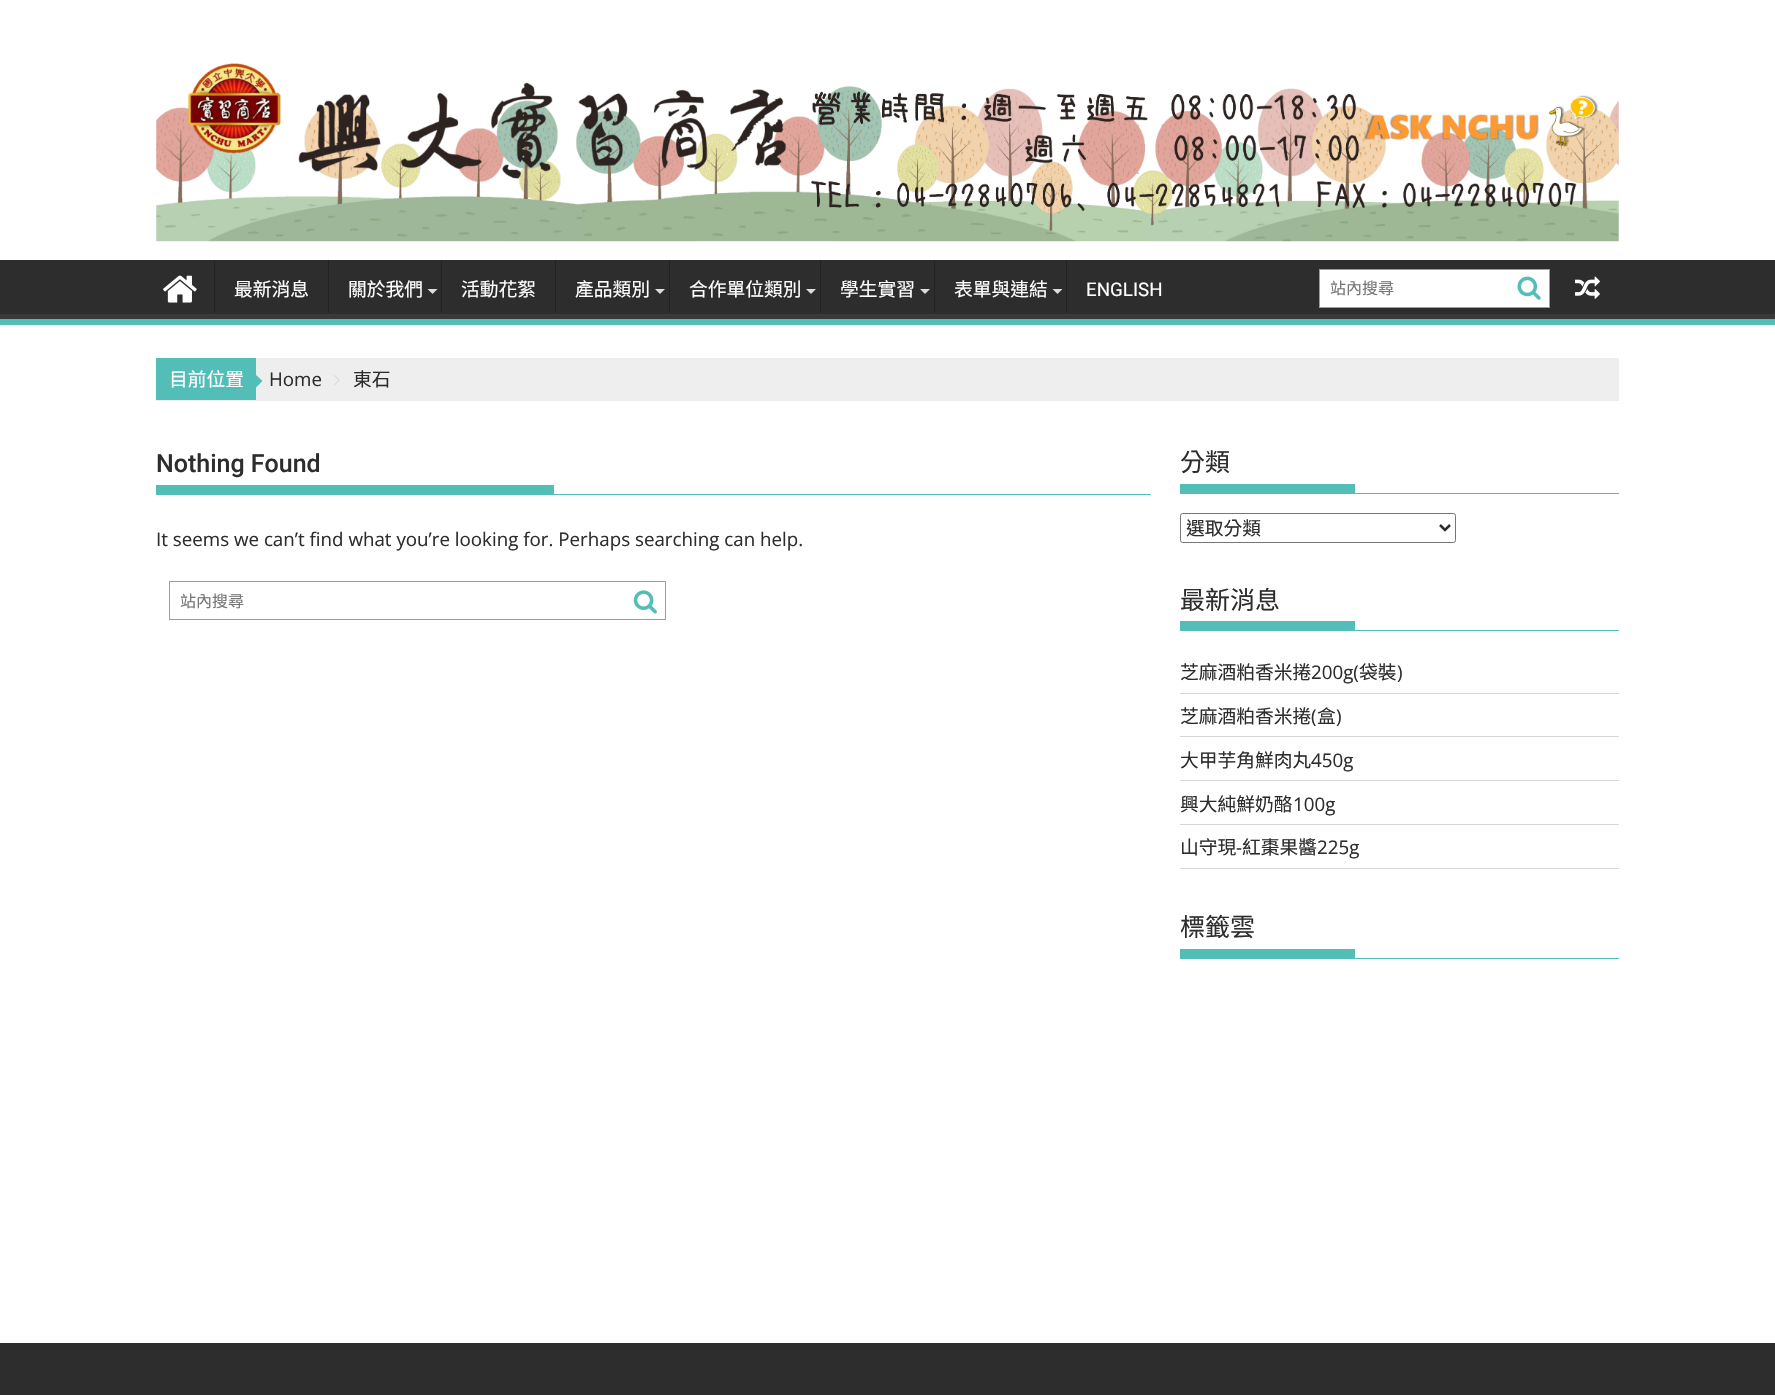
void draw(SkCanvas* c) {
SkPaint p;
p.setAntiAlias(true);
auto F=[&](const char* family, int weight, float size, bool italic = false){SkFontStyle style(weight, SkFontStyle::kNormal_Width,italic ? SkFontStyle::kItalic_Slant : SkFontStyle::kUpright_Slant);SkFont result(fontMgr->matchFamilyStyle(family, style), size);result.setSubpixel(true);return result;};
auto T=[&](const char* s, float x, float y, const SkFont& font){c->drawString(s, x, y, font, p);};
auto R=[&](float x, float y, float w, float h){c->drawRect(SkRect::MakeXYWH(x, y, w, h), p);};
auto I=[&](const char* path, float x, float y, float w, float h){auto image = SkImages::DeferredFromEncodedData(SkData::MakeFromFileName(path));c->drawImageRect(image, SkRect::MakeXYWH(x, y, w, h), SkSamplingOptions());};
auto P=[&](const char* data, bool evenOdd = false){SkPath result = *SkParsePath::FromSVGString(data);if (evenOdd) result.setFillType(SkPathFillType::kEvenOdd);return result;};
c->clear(0xffffffff);
I("1.png",156,63,1463,179);
p.setColor(0xff2d2d2d);
R(0,260,1775,54);
c->save();
c->clipRect(SkRect::MakeXYWH(0,260,1775,59));
p.setColor(0xff393939);
c->drawPath(P("M-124 136h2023v306h-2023zm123 116h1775c0 0 1 1 1 2v58c0 1-1 2-1 2h-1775c-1 0-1-1-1-2v-58c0-1 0-2 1-2z",true),p);
c->restore();
p.setColor(0xff53beb7);
R(0,319,1775,6);
I("2.png",163,275,34,28);
p.setColor(0xff222222);
R(214,260,1,53);
auto f1 = F("Noto Sans CJK TC",400,18.75);
p.setColor(0xffffffff);
T("最新消息",234,296,f1);
p.setColor(0xff222222);
R(328,260,1,53);
p.setColor(0xffffffff);
T("關於我們",348,296,f1);
p.setColor(0xffdddddd);
c->drawPath(P("M427.5 289h10l-5 5z"),p);
p.setColor(0xff222222);
R(441,260,1,53);
p.setColor(0xffffffff);
T("活動花絮",461,296,f1);
p.setColor(0xff222222);
R(555,260,1,53);
p.setColor(0xffffffff);
T("產品類別",575,296,f1);
p.setColor(0xffdddddd);
c->drawPath(P("M655 289h10l-5 5z"),p);
p.setColor(0xff222222);
R(669,260,1,53);
p.setColor(0xffffffff);
T("合作單位類別",689,296,f1);
p.setColor(0xffdddddd);
c->drawPath(P("M806 289h10l-5 5z"),p);
p.setColor(0xff222222);
R(820,260,1,53);
p.setColor(0xffffffff);
T("學生實習",840,296,f1);
p.setColor(0xffdddddd);
c->drawPath(P("M920 289h10l-5 5z"),p);
p.setColor(0xff222222);
R(934,260,1,53);
p.setColor(0xffffffff);
T("表單與連結",954,296,f1);
p.setColor(0xffdddddd);
c->drawPath(P("M1052.5 289h10l-5 5z"),p);
p.setColor(0xff222222);
R(1066,260,1,53);
auto f2 = F("Roboto",400,18.75);
p.setColor(0xffffffff);
T("ENGLISH",1086,296,f2);
c->drawRect(SkRect::MakeXYWH(1319.5,269.5,230,38),p);
p.setStroke(true);
p.setStrokeWidth(1);
p.setColor(0xff53beb7);
c->drawRect(SkRect::MakeXYWH(1319.5,269.5,230,38),p);
auto f3 = F("Noto Sans CJK TC",400,16);
p.setStroke(false);
p.setColor(0xff757575);
T("站內搜尋",1330,294,f3);
I("3.png",1517,276,24,24);
I("4.png",1575,276,25,23);
p.setColor(0xffeeeeef);
R(156,358,1463,43);
p.setColor(0xff53beb7);
R(156,358,100,42);
p.setColor(0xffffffff);
T("目前位置",169,386,f1);
p.setColor(0xff53beb7);
c->drawPath(P("M256 387.5v-12.5l6.5 6z"),p);
auto f4 = F("Open Sans",400,18.75);
p.setColor(0xff2d2d2d);
T("Home",269,386,f4);
I("5.png",334,375,6,11);
T("東石",353,386,f1);
p.setColor(0xff53beb7);
R(156,494,995,1);
auto f5 = F("Roboto",500,25);
p.setColor(0xff2d2d2d);
T("Nothing Found",156,472,f5);
p.setColor(0xff53beb7);
R(156,485,398,9);
p.setColor(0xff2d2d2d);
T("It seems we can’t find what you’re looking for. Perhaps searching can help.",156,546,f4);
p.setStroke(true);
p.setColor(0xff53beb7);
c->drawRect(SkRect::MakeXYWH(169.5,581.5,496,38),p);
p.setStroke(false);
p.setColor(0xff757575);
T("站內搜尋",180,607,f3);
I("6.png",633,590,24,24);
p.setColor(0xff53beb7);
R(1180,493,439,1);
auto f6 = F("Noto Sans CJK TC",400,25);
p.setColor(0xff2d2d2d);
T("分類",1180,471,f6);
p.setColor(0xff53beb7);
R(1180,484,175,9);
p.setStroke(true);
p.setColor(0xff767676);
c->drawRoundRect(SkRect::MakeXYWH(1180.5,513.5,275,29),2,2,p);
p.setStrokeWidth(2.5);
p.setColor(0xff2d2d2d);
c->drawPath(P("M1440 525l5 5l5-5"),p);
p.setStroke(false);
T("選取分類",1186,535,f1);
p.setColor(0xff53beb7);
R(1180,630,439,1);
p.setColor(0xff2d2d2d);
T("最新消息",1180,609,f6);
p.setColor(0xff53beb7);
R(1180,621,175,9);
p.setColor(0xffd7d7d7);
R(1180,693,439,1);
p.setColor(0xff2d2d2d);
T("芝麻酒粕香米捲",1180,679,f1);
T("200g(",1311,679,f4);
T("袋裝",1359,679,f1);
T(")",1397,679,f4);
p.setColor(0xffd7d7d7);
R(1180,736,439,1);
p.setColor(0xff2d2d2d);
T("芝麻酒粕香米捲",1180,723,f1);
T("(",1311,723,f4);
T("盒",1317,723,f1);
T(")",1336,723,f4);
p.setColor(0xffd7d7d7);
R(1180,780,439,1);
p.setColor(0xff2d2d2d);
T("大甲芋角鮮肉丸",1180,767,f1);
T("450g",1311,767,f4);
p.setColor(0xffd7d7d7);
R(1180,824,439,1);
p.setColor(0xff2d2d2d);
T("興大純鮮奶酪",1180,811,f1);
T("100g",1293,811,f4);
p.setColor(0xffd7d7d7);
R(1180,868,439,1);
p.setColor(0xff2d2d2d);
T("山守現",1180,854,f1);
T("-",1236,854,f4);
T("紅棗果醬",1242,854,f1);
T("225g",1317,854,f4);
p.setColor(0xff53beb7);
R(1180,958,439,1);
p.setColor(0xff2d2d2d);
T("標籤雲",1180,936,f6);
p.setColor(0xff53beb7);
R(1180,949,175,9);
p.setColor(0xff2d2d2d);
R(0,1343,1775,52);
}
